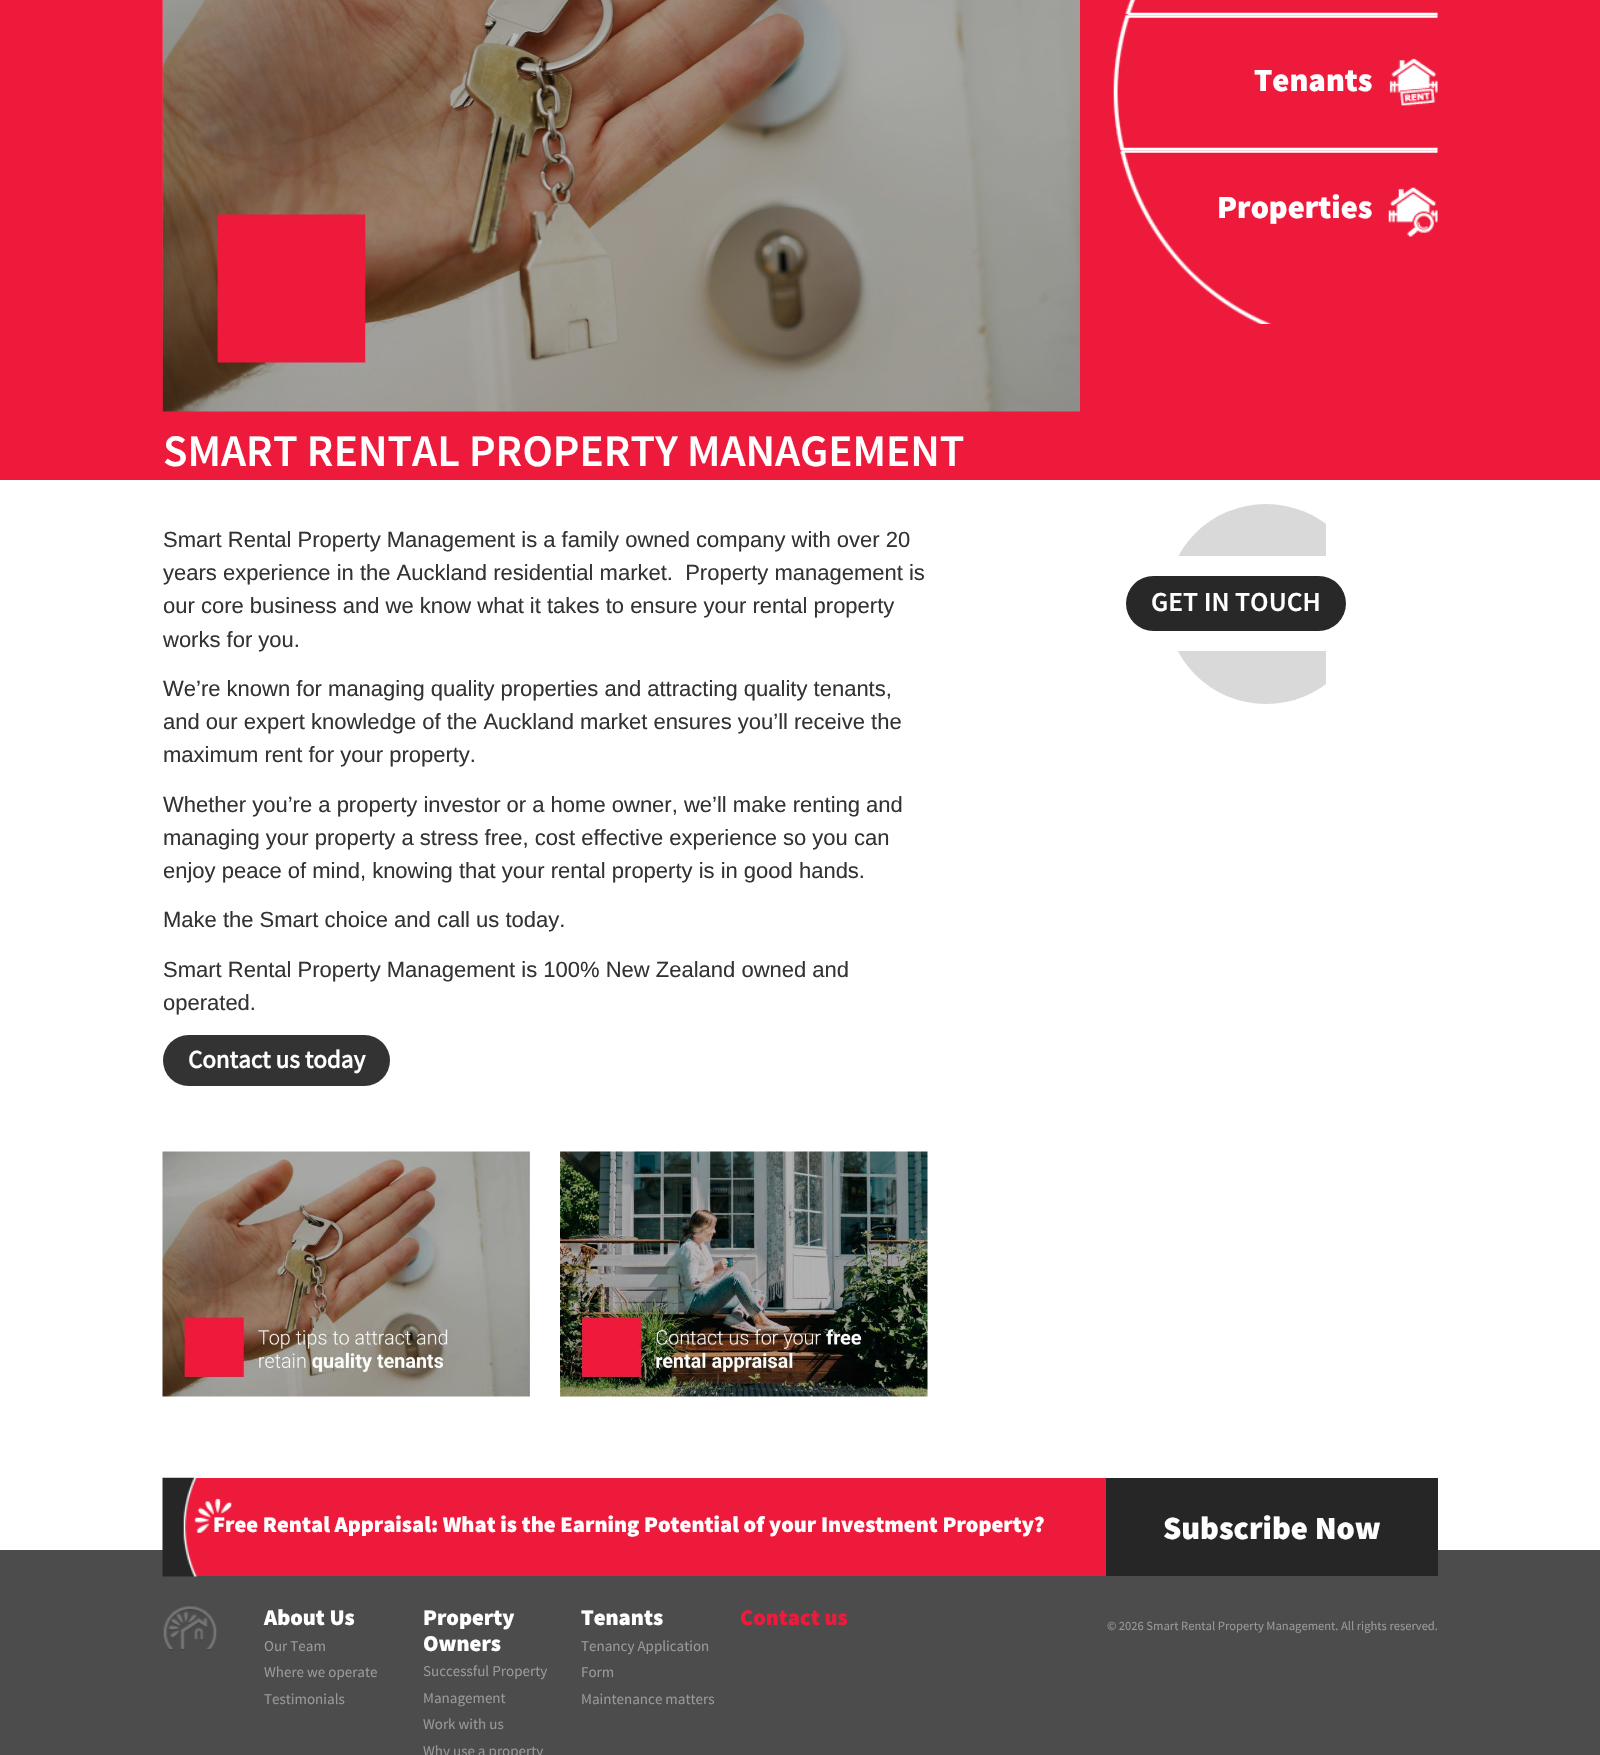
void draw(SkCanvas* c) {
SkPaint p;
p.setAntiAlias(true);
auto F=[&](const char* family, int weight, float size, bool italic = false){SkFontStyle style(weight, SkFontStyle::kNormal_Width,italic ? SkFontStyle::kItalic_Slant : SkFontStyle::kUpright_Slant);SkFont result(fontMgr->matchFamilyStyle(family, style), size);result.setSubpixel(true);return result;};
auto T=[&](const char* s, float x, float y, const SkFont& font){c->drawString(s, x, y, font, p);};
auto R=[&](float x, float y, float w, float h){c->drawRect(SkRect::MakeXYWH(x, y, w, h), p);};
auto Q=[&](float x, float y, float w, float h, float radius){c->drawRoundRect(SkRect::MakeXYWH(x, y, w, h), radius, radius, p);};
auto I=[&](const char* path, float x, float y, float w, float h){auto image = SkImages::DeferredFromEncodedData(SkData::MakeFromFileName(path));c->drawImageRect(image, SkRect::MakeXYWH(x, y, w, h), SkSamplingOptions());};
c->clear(0xffffffff);
p.setColor(0xffed1a3b);
R(0,0,1600,480);
I("1.png",162,0,918,412);
I("2.png",1125,0,313,16);
I("3.png",1113,15,325,136);
auto f1 = F("Source Sans Pro",900,32.5);
p.setColor(0xffffffff);
T("Tenants",1254,91,f1);
I("4.png",1120,150,318,174);
T("Properties",1217,218,f1);
auto f2 = F("Source Sans Pro",600,45);
T("SMART RENTAL PROPERTY MANAGEMENT",163,466,f2);
auto f3 = F("Liberation Sans",400,22);
p.setColor(0xff333333);
T("Smart Rental Property Management is a family owned company with over 20",163,547,f3);
T("years experience in the Auckland residential market.  Property management is",163,580,f3);
T("our core business and we know what it takes to ensure your rental property",163,613,f3);
T("works for you.",163,647,f3);
T("We’re known for managing quality properties and attracting quality tenants,",163,696,f3);
T("and our expert knowledge of the Auckland market ensures you’ll receive the",163,729,f3);
T("maximum rent for your property.",163,762,f3);
T("Whether you’re a property investor or a home owner, we’ll make renting and",163,812,f3);
T("managing your property a stress free, cost effective experience so you can",163,845,f3);
T("enjoy peace of mind, knowing that your rental property is in good hands.",163,878,f3);
T("Make the Smart choice and call us today.",163,927,f3);
T("Smart Rental Property Management is 100% New Zealand owned and",163,977,f3);
T("operated.",163,1010,f3);
Q(163,1035,227,51,25.5);
auto f4 = F("Source Sans Pro",700,25);
p.setColor(0xffffffff);
T("Contact us today",188,1068,f4);
I("5.png",162,1151,368,246);
I("6.png",560,1151,368,246);
c->save();
c->clipRect(SkRect::MakeXYWH(1126,504,200,200));
p.setColor(0xffd9d9d9);
c->drawCircle(1266,604,100,p);
c->restore();
p.setColor(0xffffffff);
R(1166,556,160,95);
p.setColor(0xff282828);
Q(1126,576,220,55,27.5);
auto f5 = F("Source Sans Pro",600,27.5);
p.setColor(0xffffffff);
T("GET IN TOUCH",1151,611,f5);
p.setColor(0xff4c4c4d);
R(0,1550,1600,205);
p.setColor(0xffed1a3b);
R(184,1478,922,98);
I("7.png",162,1477,70,100);
auto f6 = F("Source Sans Pro",900,22.5);
p.setColor(0xffffffff);
T("Free Rental Appraisal: What is the Earning Potential of your Investment Property?",213,1532,f6);
p.setColor(0xff262627);
R(1106,1478,332,98);
p.setColor(0xffffffff);
T("Subscribe Now",1163,1539,f1);
I("8.png",163,1606,54,45);
T("About Us",264,1625,f6);
auto f7 = F("Source Sans Pro",400,15);
p.setColor(0xff999999);
T("Our Team",264,1651,f7);
T("Where we operate",264,1677,f7);
T("Testimonials",264,1704,f7);
p.setColor(0xffffffff);
T("Property",423,1625,f6);
T("Owners",423,1651,f6);
p.setColor(0xff999999);
T("Successful Property",423,1676,f7);
T("Management",423,1703,f7);
T("Work with us",423,1729,f7);
T("Why use a property",423,1756,f7);
p.setColor(0xffffffff);
T("Tenants",581,1625,f6);
p.setColor(0xff999999);
T("Tenancy Application",581,1651,f7);
T("Form",581,1677,f7);
T("Maintenance matters",581,1704,f7);
p.setColor(0xffed1a3b);
T("Contact us",740,1625,f6);
auto f8 = F("Source Sans Pro",400,12.55);
p.setColor(0xff999999);
T("© 2026 Smart Rental Property Management. All rights reserved.",1107,1630,f8);
}
